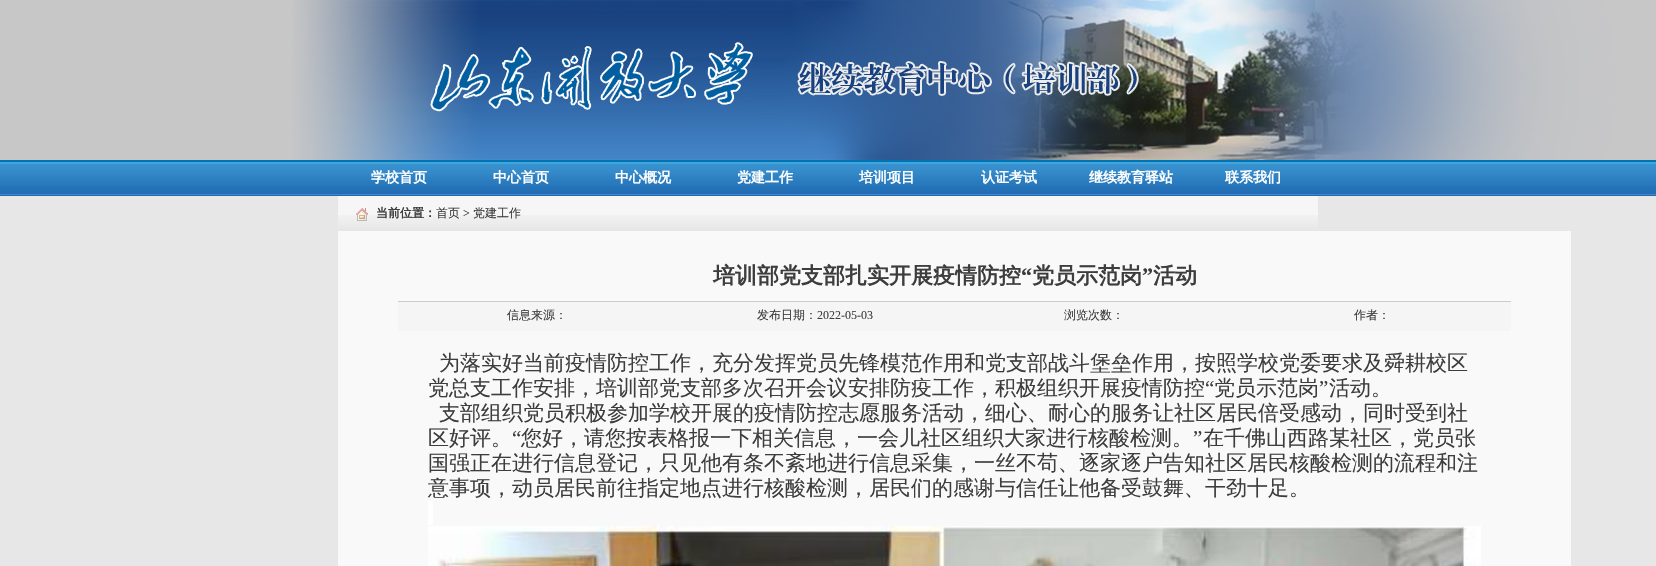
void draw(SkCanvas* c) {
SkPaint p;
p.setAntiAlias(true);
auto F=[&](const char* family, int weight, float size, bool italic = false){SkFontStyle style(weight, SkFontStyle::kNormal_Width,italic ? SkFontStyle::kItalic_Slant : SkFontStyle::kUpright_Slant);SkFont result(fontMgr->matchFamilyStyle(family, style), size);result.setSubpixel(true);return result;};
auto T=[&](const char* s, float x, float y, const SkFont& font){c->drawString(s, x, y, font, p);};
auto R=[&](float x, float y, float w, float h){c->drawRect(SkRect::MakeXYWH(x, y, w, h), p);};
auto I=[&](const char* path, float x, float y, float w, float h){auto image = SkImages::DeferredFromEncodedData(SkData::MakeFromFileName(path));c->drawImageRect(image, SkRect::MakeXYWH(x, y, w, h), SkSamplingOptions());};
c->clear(0xffe7e7e7);
I("1.png",0,0,1656,160);
I("2.png",0,160,1656,36);
auto f1 = F("WenQuanYi Zen Hei",700,14);
p.setColor(0xffffffff);
T("学校首页",371,182,f1);
T("中心首页",493,182,f1);
T("中心概况",615,182,f1);
T("党建工作",737,182,f1);
T("培训项目",859,182,f1);
T("认证考试",981,182,f1);
T("继续教育驿站",1089,182,f1);
T("联系我们",1225,182,f1);
p.setColor(0xfff6f6f6);
R(338,196,980,19);
I("3.png",338,215,980,16);
I("4.png",356,207,12,14);
auto f2 = F("WenQuanYi Zen Hei",700,12);
p.setColor(0xff3d3d3d);
T("当前位置：",376,217,f2);
auto f3 = F("WenQuanYi Zen Hei",500,12);
T("首页",436,217,f3);
auto f4 = F("Liberation Serif",400,12);
T(">",463,217,f4);
T("党建工作",473,217,f3);
p.setColor(0xfff9f9f9);
R(338,231,1233,335);
auto f5 = F("WenQuanYi Zen Hei",700,22);
p.setColor(0xff3d3d3d);
T("培训部党支部扎实开展疫情防控",713,283,f5);
auto f6 = F("Liberation Serif",700,22);
T("“",1021,283,f6);
T("党员示范岗",1032,283,f5);
T("”",1142,283,f6);
T("活动",1153,283,f5);
p.setColor(0xfff5f5f5);
R(398,302,1113,29);
p.setColor(0xffcccccc);
R(398,301,1113,1);
p.setColor(0xff3d3d3d);
T("信息来源：",507,319,f3);
T("发布日期：",757,319,f3);
T("2022-05-03",817,319,f4);
T("浏览次数：",1064,319,f3);
T("作者：",1354,319,f3);
auto f7 = F("WenQuanYi Zen Hei",500,21);
T("为落实好当前疫情防控工作，充分发挥党员先锋模范作用和党支部战斗堡垒作用，按照学校党委要求及舜耕校区",439,370,f7);
T("党总支工作安排，培训部党支部多次召开会议安排防疫工作，积极组织开展疫情防控",428,395,f7);
auto f8 = F("Liberation Serif",400,21);
T("“",1205,395,f8);
T("党员示范岗",1214,395,f7);
T("”",1319,395,f8);
T("活动。",1329,395,f7);
T("支部组织党员积极参加学校开展的疫情防控志愿服务活动，细心、耐心的服务让社区居民倍受感动，同时受到社",439,420,f7);
T("区好评。",428,445,f7);
T("“",512,445,f8);
T("您好，请您按表格报一下相关信息，一会儿社区组织大家进行核酸检测。",521,445,f7);
T("”",1193,445,f8);
T("在千佛山西路某社区，党员张",1203,445,f7);
T("国强正在进行信息登记，只见他有条不紊地进行信息采集，一丝不苟、逐家逐户告知社区居民核酸检测的流程和注",428,470,f7);
T("意事项，动员居民前往指定地点进行核酸检测，居民们的感谢与信任让他备受鼓舞、干劲十足。",428,495,f7);
p.setColor(0xffffffff);
R(428,501,5,24);
I("5.png",428,526,1053,40);
}
